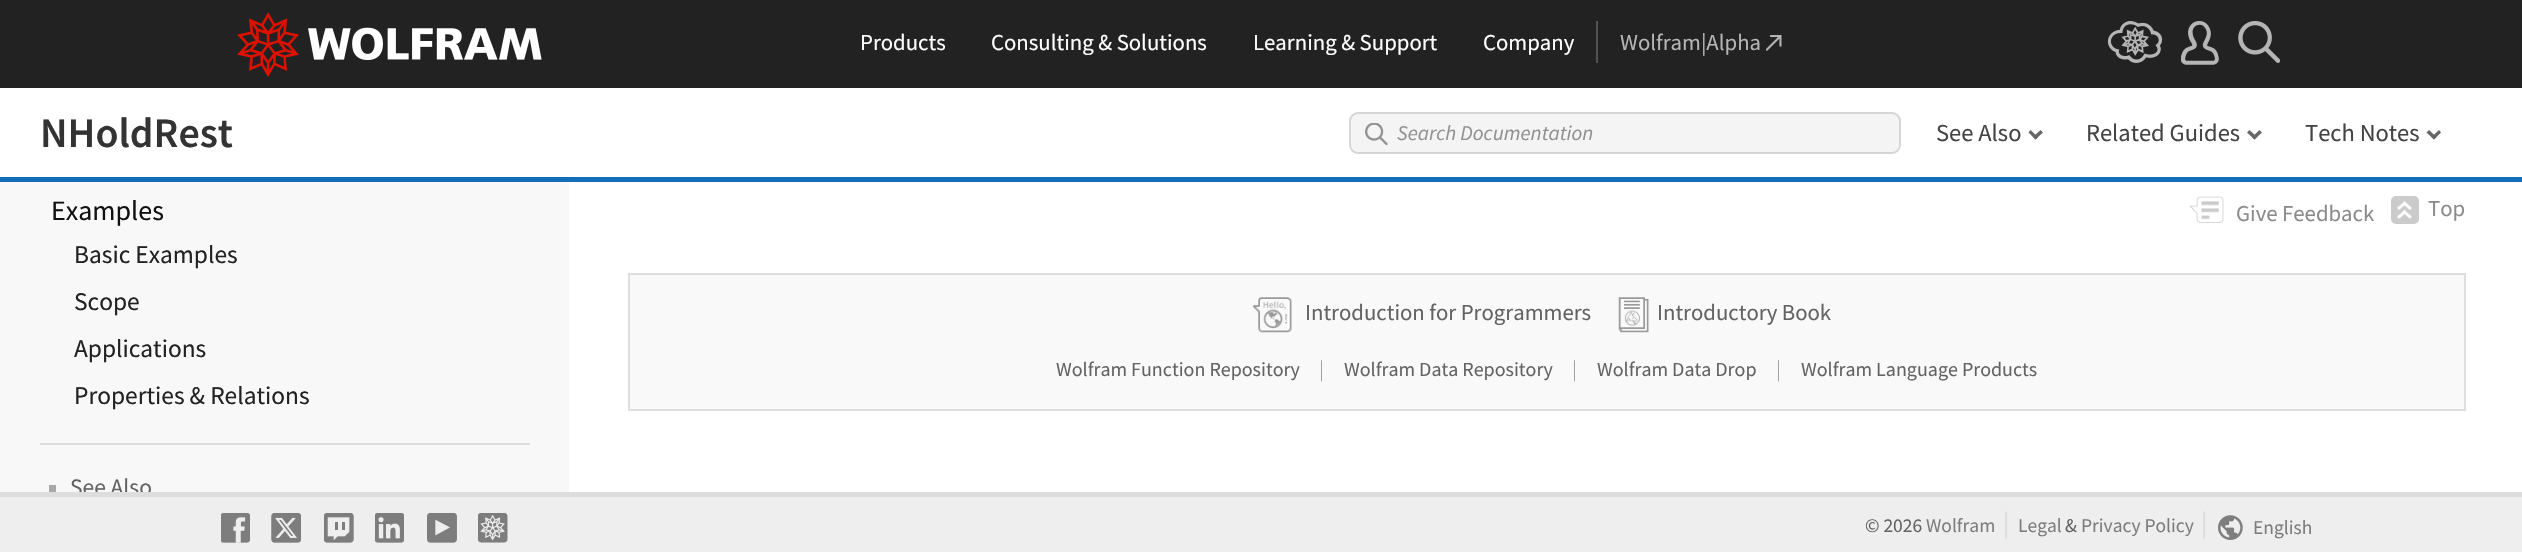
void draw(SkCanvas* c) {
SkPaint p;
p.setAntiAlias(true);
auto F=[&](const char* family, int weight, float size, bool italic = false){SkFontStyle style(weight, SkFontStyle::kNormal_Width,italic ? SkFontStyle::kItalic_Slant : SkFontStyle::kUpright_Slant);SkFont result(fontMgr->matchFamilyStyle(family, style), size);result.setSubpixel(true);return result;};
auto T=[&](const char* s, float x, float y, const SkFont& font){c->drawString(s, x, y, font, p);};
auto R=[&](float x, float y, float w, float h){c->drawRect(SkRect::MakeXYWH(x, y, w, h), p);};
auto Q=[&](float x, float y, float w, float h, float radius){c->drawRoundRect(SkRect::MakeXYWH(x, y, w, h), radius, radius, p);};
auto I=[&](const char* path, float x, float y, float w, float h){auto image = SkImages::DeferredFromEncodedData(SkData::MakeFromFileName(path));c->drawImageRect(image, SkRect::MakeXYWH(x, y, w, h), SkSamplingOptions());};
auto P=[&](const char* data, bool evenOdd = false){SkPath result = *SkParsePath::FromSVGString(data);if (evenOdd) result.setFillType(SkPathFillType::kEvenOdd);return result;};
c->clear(0xffffffff);
p.setColor(0xff222222);
R(0,0,2522,88);
I("1.png",237,12,305,65);
auto f1 = F("Source Sans Pro",400,22.75);
p.setColor(0xffffffff);
T("Products",860,50,f1);
T("Consulting & Solutions",991,50,f1);
T("Learning & Support",1253,50,f1);
T("Company",1483,50,f1);
p.setColor(0xff525252);
R(1596,21,2,42);
p.setColor(0xffb5b5b5);
T("Wolfram|Alpha",1620,50,f1);
I("2.png",1766,35,16,16);
I("3.png",2107,21,56,42);
I("4.png",2181,21,38,44);
I("5.png",2238,21,42,42);
p.setColor(0xff136eb7);
R(0,177,2522,5);
auto f2 = F("Source Sans Pro",600,42);
p.setColor(0xff333333);
T("NHoldRest",40,147,f2);
p.setColor(0xfff4f4f4);
c->drawRoundRect(SkRect::MakeXYWH(1350,113,550,40),8,8,p);
p.setStroke(true);
p.setStrokeWidth(2);
p.setColor(0xffd6d6d6);
c->drawRoundRect(SkRect::MakeXYWH(1350,113,550,40),8,8,p);
I("6.png",1365,123,23,22);
auto f3 = F("Source Sans Pro",400,21,true);
p.setStroke(false);
p.setColor(0xff919191);
T("Search Documentation",1397,140,f3);
auto f4 = F("Source Sans Pro",400,24.5);
p.setColor(0xff444444);
T("See Also",1936,141,f4);
p.setColor(0xff666666);
c->drawPath(P("M2033 137l7.5-7l2.5 2.5l-7.5 7z"),p);
c->drawPath(P("M2028.5 132.5l2-2.5l7.5 7l-2.5 2.5z"),p);
p.setColor(0xff444444);
T("Related Guides",2086,141,f4);
p.setColor(0xff666666);
c->drawPath(P("M2252 137l7.5-7l2.5 2.5l-7.5 7z"),p);
c->drawPath(P("M2247 132.5l2.5-2.5l7.5 7l-2.5 2.5z"),p);
p.setColor(0xff444444);
T("Tech Notes",2305,141,f4);
p.setColor(0xff666666);
c->drawPath(P("M2431.5 137l7.5-7l2 2.5l-7 7z"),p);
c->drawPath(P("M2426.5 132.5l2.5-2.5l7.5 7l-2.5 2.5z"),p);
p.setColor(0xfff8f8f8);
R(0,182,569,310);
p.setColor(0xffdddddd);
R(40,443,490,2);
auto f5 = F("Source Sans Pro",400,28);
p.setColor(0xff111111);
T("Examples",51,220,f5);
auto f6 = F("Source Sans Pro",400,25.4);
p.setColor(0xff222222);
T("Basic Examples",74,263,f6);
T("Scope",74,310,f6);
T("Applications",74,357,f6);
T("Properties & Relations",74,404,f6);
p.setColor(0xffa8a8a8);
R(49,485,7,7);
c->save();
c->clipRect(SkRect::MakeXYWH(18,53,551,439));
auto f7 = F("Source Sans Pro",400,23.5);
p.setColor(0xff636363);
T("See Also",70,495,f7);
c->restore();
I("7.png",2189,196,35,27);
p.setColor(0xff8b8b8b);
T("Give Feedback",2236,221,f1);
p.setColor(0xffcbcbcb);
Q(2391,196,28,28,5);
I("8.png",2397,201,15,18);
p.setColor(0xff8b8b8b);
T("Top",2428,216,f1);
p.setColor(0xfff9f9f9);
c->drawRect(SkRect::MakeXYWH(629,274,1836,136),p);
p.setStroke(true);
p.setColor(0xffdedede);
c->drawRect(SkRect::MakeXYWH(629,274,1836,136),p);
I("9.png",1253,297,39,36);
p.setStroke(false);
p.setColor(0xff636363);
T("Introduction for Programmers",1305,320,f1);
I("10.png",1618,297,31,36);
T("Introductory Book",1657,320,f1);
auto f8 = F("Source Sans Pro",400,20);
T("Wolfram Function Repository",1056,376,f8);
auto f9 = F("Source Sans Pro",300,21);
p.setColor(0xff919191);
T("|",1319,376,f9);
p.setColor(0xff636363);
T("Wolfram Data Repository",1344,376,f8);
p.setColor(0xff919191);
T("|",1572,376,f9);
p.setColor(0xff636363);
T("Wolfram Data Drop",1597,376,f8);
p.setColor(0xff919191);
T("|",1776,376,f9);
p.setColor(0xff636363);
T("Wolfram Language Products",1801,376,f8);
p.setColor(0xffeeeeee);
R(0,497,2522,55);
p.setColor(0xffdddddd);
R(0,492,2522,5);
I("11.png",221,513,29,30);
I("12.png",271,513,30,30);
I("13.png",324,513,30,30);
I("14.png",375,513,29,30);
I("15.png",427,513,30,30);
I("16.png",478,513,30,30);
auto f10 = F("Source Sans Pro",400,19.5);
p.setColor(0xff636363);
T("© 2026",1865,532,f10);
p.setColor(0xff7d7d7d);
T("Wolfram",1926,532,f10);
auto f11 = F("Source Sans Pro",400,27);
p.setColor(0xffdadada);
T("|",2003,532,f11);
p.setColor(0xff7d7d7d);
T("Legal",2018,532,f10);
p.setColor(0xff636363);
T("&",2065,532,f10);
p.setColor(0xff7d7d7d);
T("Privacy Policy",2081,532,f10);
p.setColor(0xffdadada);
T("|",2201,532,f11);
I("17.png",2218,515,25,25);
p.setColor(0xff7d7d7d);
T("English",2253,534,f10);
}
